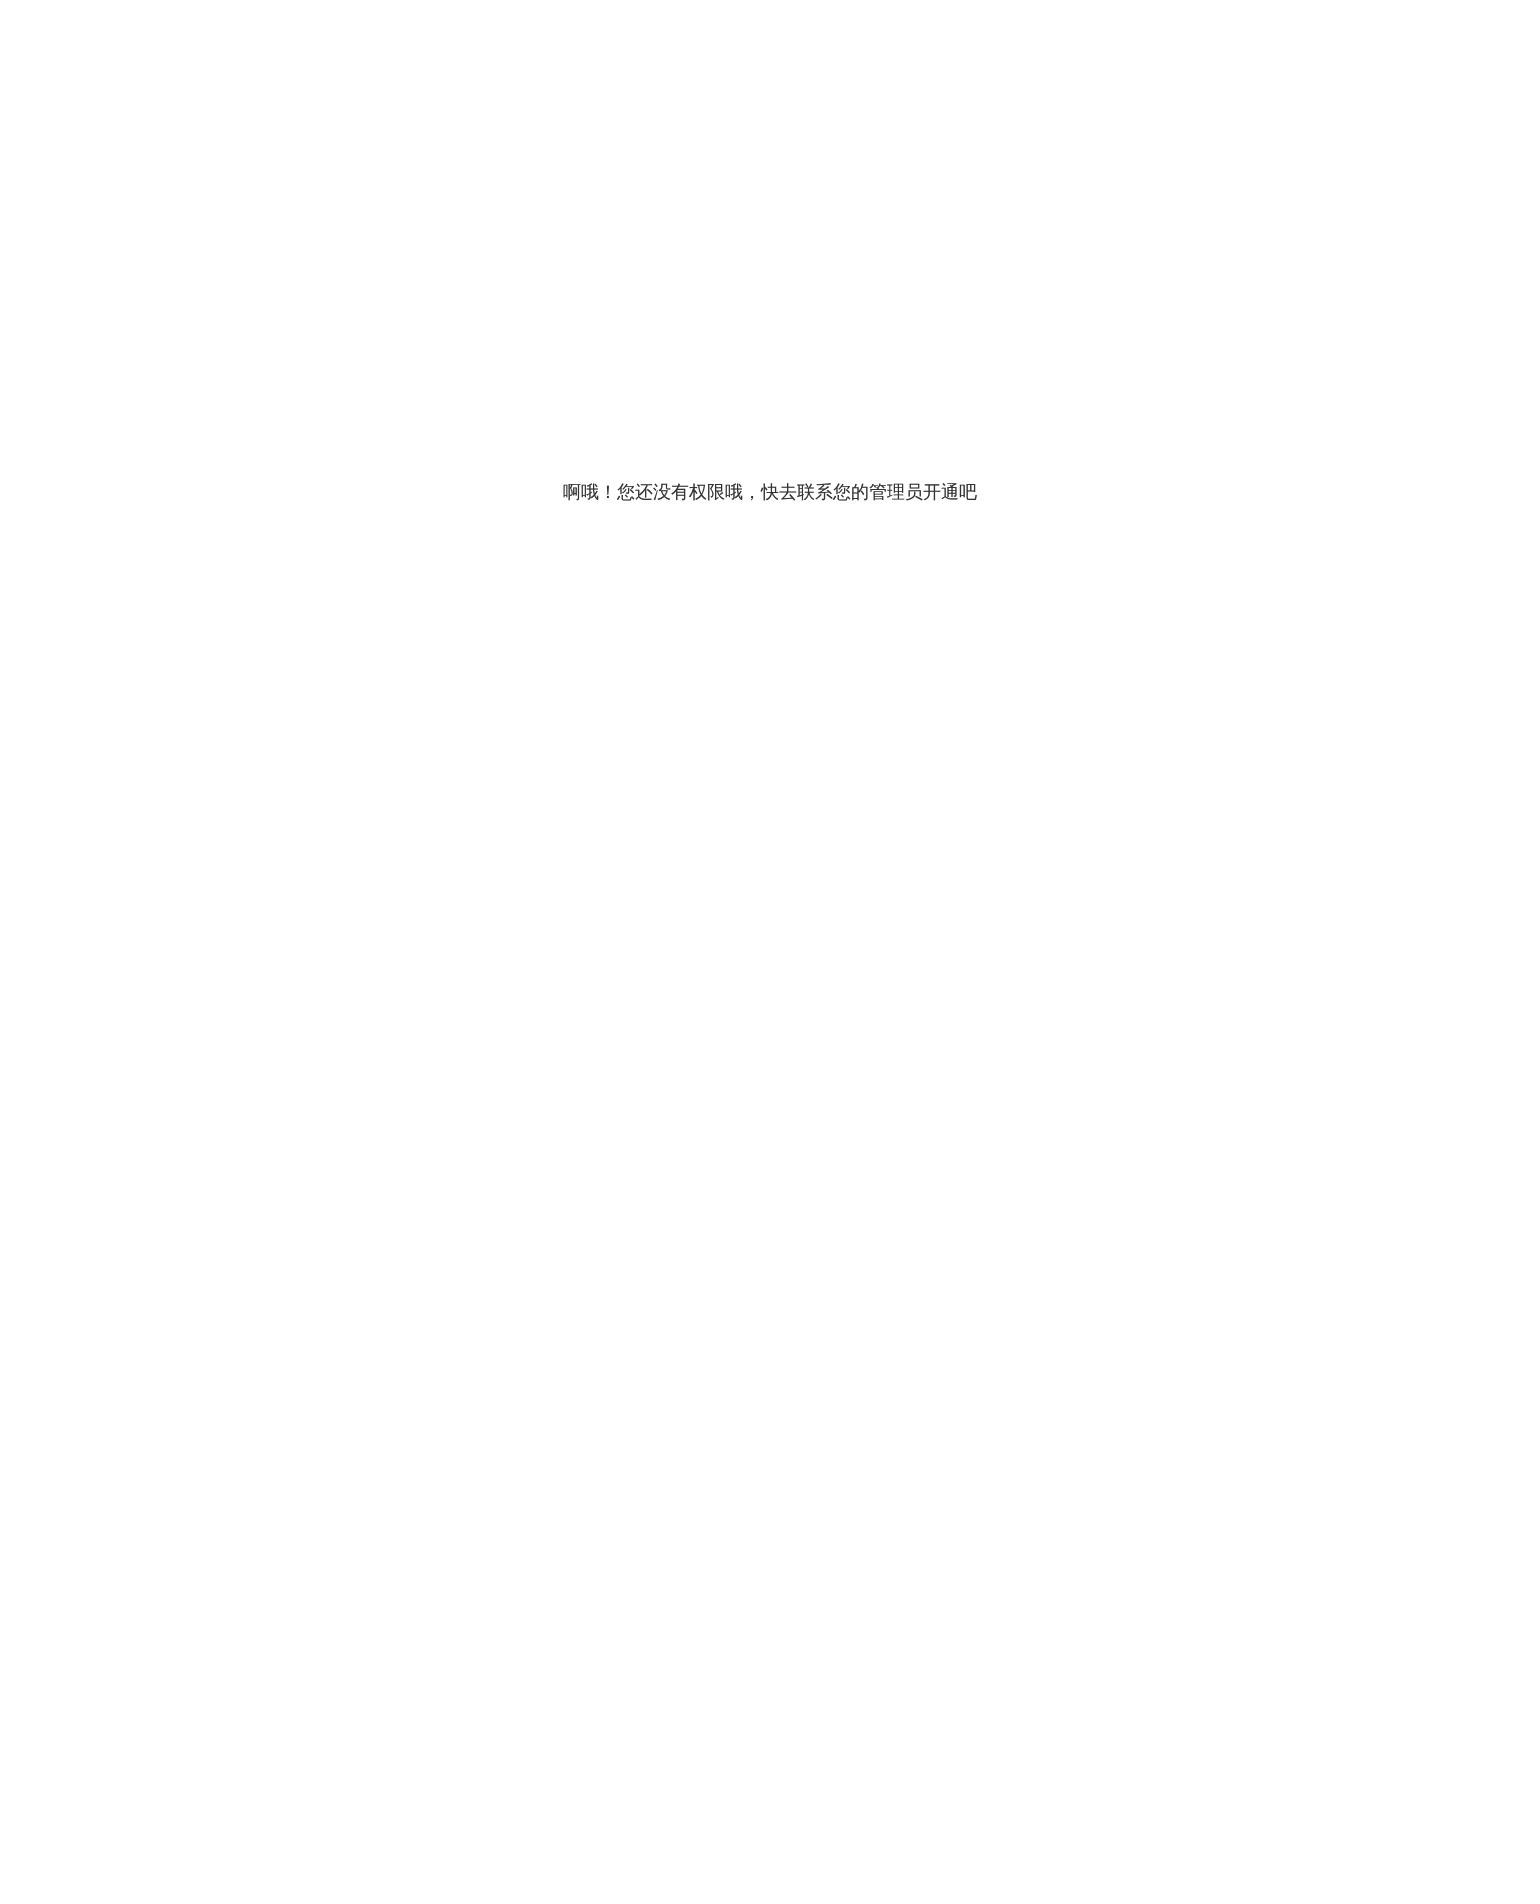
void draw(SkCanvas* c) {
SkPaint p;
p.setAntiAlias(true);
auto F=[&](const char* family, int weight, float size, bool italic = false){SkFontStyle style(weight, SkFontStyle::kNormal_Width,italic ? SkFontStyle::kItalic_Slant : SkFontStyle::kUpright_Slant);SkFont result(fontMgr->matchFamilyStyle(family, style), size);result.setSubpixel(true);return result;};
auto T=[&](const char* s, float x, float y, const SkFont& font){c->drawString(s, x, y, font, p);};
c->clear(0xffffffff);
auto f1 = F("WenQuanYi Zen Hei",500,18);
p.setColor(0xff333333);
T("啊哦！您还没有权限哦，快去联系您的管理员开通吧",563,498,f1);
}
